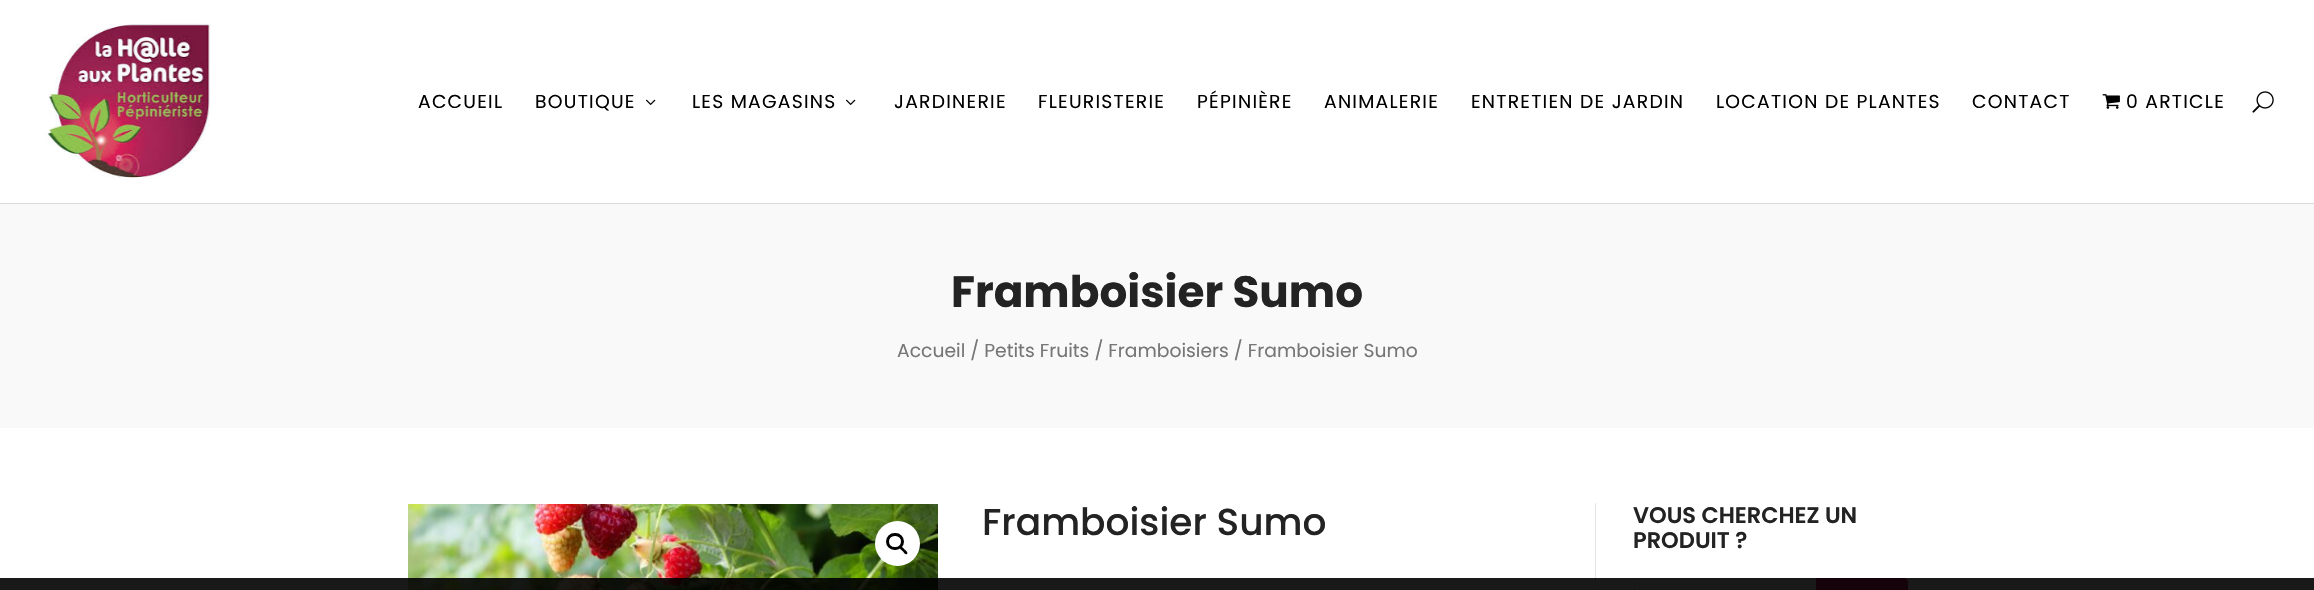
void draw(SkCanvas* c) {
SkPaint p;
p.setAntiAlias(true);
auto F=[&](const char* family, int weight, float size, bool italic = false){SkFontStyle style(weight, SkFontStyle::kNormal_Width,italic ? SkFontStyle::kItalic_Slant : SkFontStyle::kUpright_Slant);SkFont result(fontMgr->matchFamilyStyle(family, style), size);result.setSubpixel(true);return result;};
auto T=[&](const char* s, float x, float y, const SkFont& font){c->drawString(s, x, y, font, p);};
auto L=[&](const char* s, float x, float y, const SkFont& font, const SkPaint& ink, float letter, float word){std::vector<SkGlyphID> glyphs(font.countText(s, strlen(s), SkTextEncoding::kUTF8));std::vector<float> xs(glyphs.size());font.textToGlyphs(s, strlen(s), SkTextEncoding::kUTF8, glyphs);font.getXPos(glyphs, xs, x);float extra = 0;for (size_t i = 0; i < glyphs.size(); i++) {xs[i] += extra;extra += letter + word * (glyphs[i] == font.unicharToGlyph(' '));}c->drawTextBlob(SkTextBlob::MakeFromPosHGlyphs(glyphs, xs, y, font), 0, 0, ink);};
auto R=[&](float x, float y, float w, float h){c->drawRect(SkRect::MakeXYWH(x, y, w, h), p);};
auto I=[&](const char* path, float x, float y, float w, float h){auto image = SkImages::DeferredFromEncodedData(SkData::MakeFromFileName(path));c->drawImageRect(image, SkRect::MakeXYWH(x, y, w, h), SkSamplingOptions());};
auto P=[&](const char* data, bool evenOdd = false){SkPath result = *SkParsePath::FromSVGString(data);if (evenOdd) result.setFillType(SkPathFillType::kEvenOdd);return result;};
c->clear(0xffffffff);
p.setColor(0xffd9d9d9);
R(0,203,2314,1);
I("1.png",43,23,167,156);
auto f1 = F("Poppins",400,18.75);
p.setColor(0xff000000);
L("ACCUEIL",418,108,f1,p,1.25,0);
L("BOUTIQUE",535,108,f1,p,1.25,0);
I("2.png",646,99,10,6);
L("LES MAGASINS",692,108,f1,p,1.25,0);
I("2.png",846,99,10,6);
L("JARDINERIE",894,108,f1,p,1.25,0);
L("FLEURISTERIE",1038,108,f1,p,1.25,0);
L("PÉPINIÈRE",1197,108,f1,p,1.25,0);
L("ANIMALERIE",1324,108,f1,p,1.25,0);
L("ENTRETIEN DE JARDIN",1471,108,f1,p,1.25,0);
L("LOCATION DE PLANTES",1716,108,f1,p,1.25,0);
L("CONTACT",1972,108,f1,p,1.25,0);
I("3.png",2102,94,18,15);
L("0 ARTICLE",2126,108,f1,p,1.25,0);
I("4.png",2252,91,22,22);
p.setColor(0xfff9f9f9);
R(0,204,2314,224);
auto f2 = F("Poppins",700,43.75);
p.setColor(0xff232323);
T("Framboisier Sumo",951,307,f2);
p.setColor(0xff767676);
T("Accueil / Petits Fruits / Framboisiers / Framboisier Sumo",897,357,f1);
I("5.png",408,504,530,86);
p.setColor(0xffffffff);
c->drawCircle(897.5,543.5,22.5,p);
p.setStroke(true);
p.setStrokeWidth(3);
p.setColor(0xff000000);
c->drawRoundRect(SkRect::MakeXYWH(887.5,534.5,15,14),7,7,p);
p.setStroke(false);
c->drawPath(P("M900 547c1.5-1.5 3.5 1.5 4.5 2.5c1 .5 4 3 2.5 4.5c-1.5 1.5-3.5-2-4.5-3c-.5-.5-4-3-2.5-4z"),p);
auto f3 = F("Poppins",500,37.5);
p.setColor(0xff232323);
T("Framboisier Sumo",982,535,f3);
p.setColor(0xffe6e6e6);
R(1595,503,1,87);
auto f4 = F("Poppins",600,22.5);
p.setColor(0xff232323);
T("VOUS CHERCHEZ UN",1633,523,f4);
T("PRODUIT ?",1633,548,f4);
p.setStroke(true);
p.setStrokeWidth(1);
p.setColor(0xffdddddd);
c->drawRoundRect(SkRect::MakeXYWH(1634.5,578.5,273,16),3.5,3.5,p);
p.setStroke(false);
p.setColor(0xffd6115f);
c->drawPath(P("M1816.5 578.5h87.5c2 0 3.5 1.5 3.5 3.5v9c0 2-1.5 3.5-3.5 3.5h-87.5z"),p);
p.setStroke(true);
c->drawPath(P("M1816.5 578.5h87.5c2 0 3.5 1.5 3.5 3.5v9c0 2-1.5 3.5-3.5 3.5h-87.5z"),p);
p.setStroke(false);
p.setColor(0xe6000000);
R(0,578,2314,12);
}
